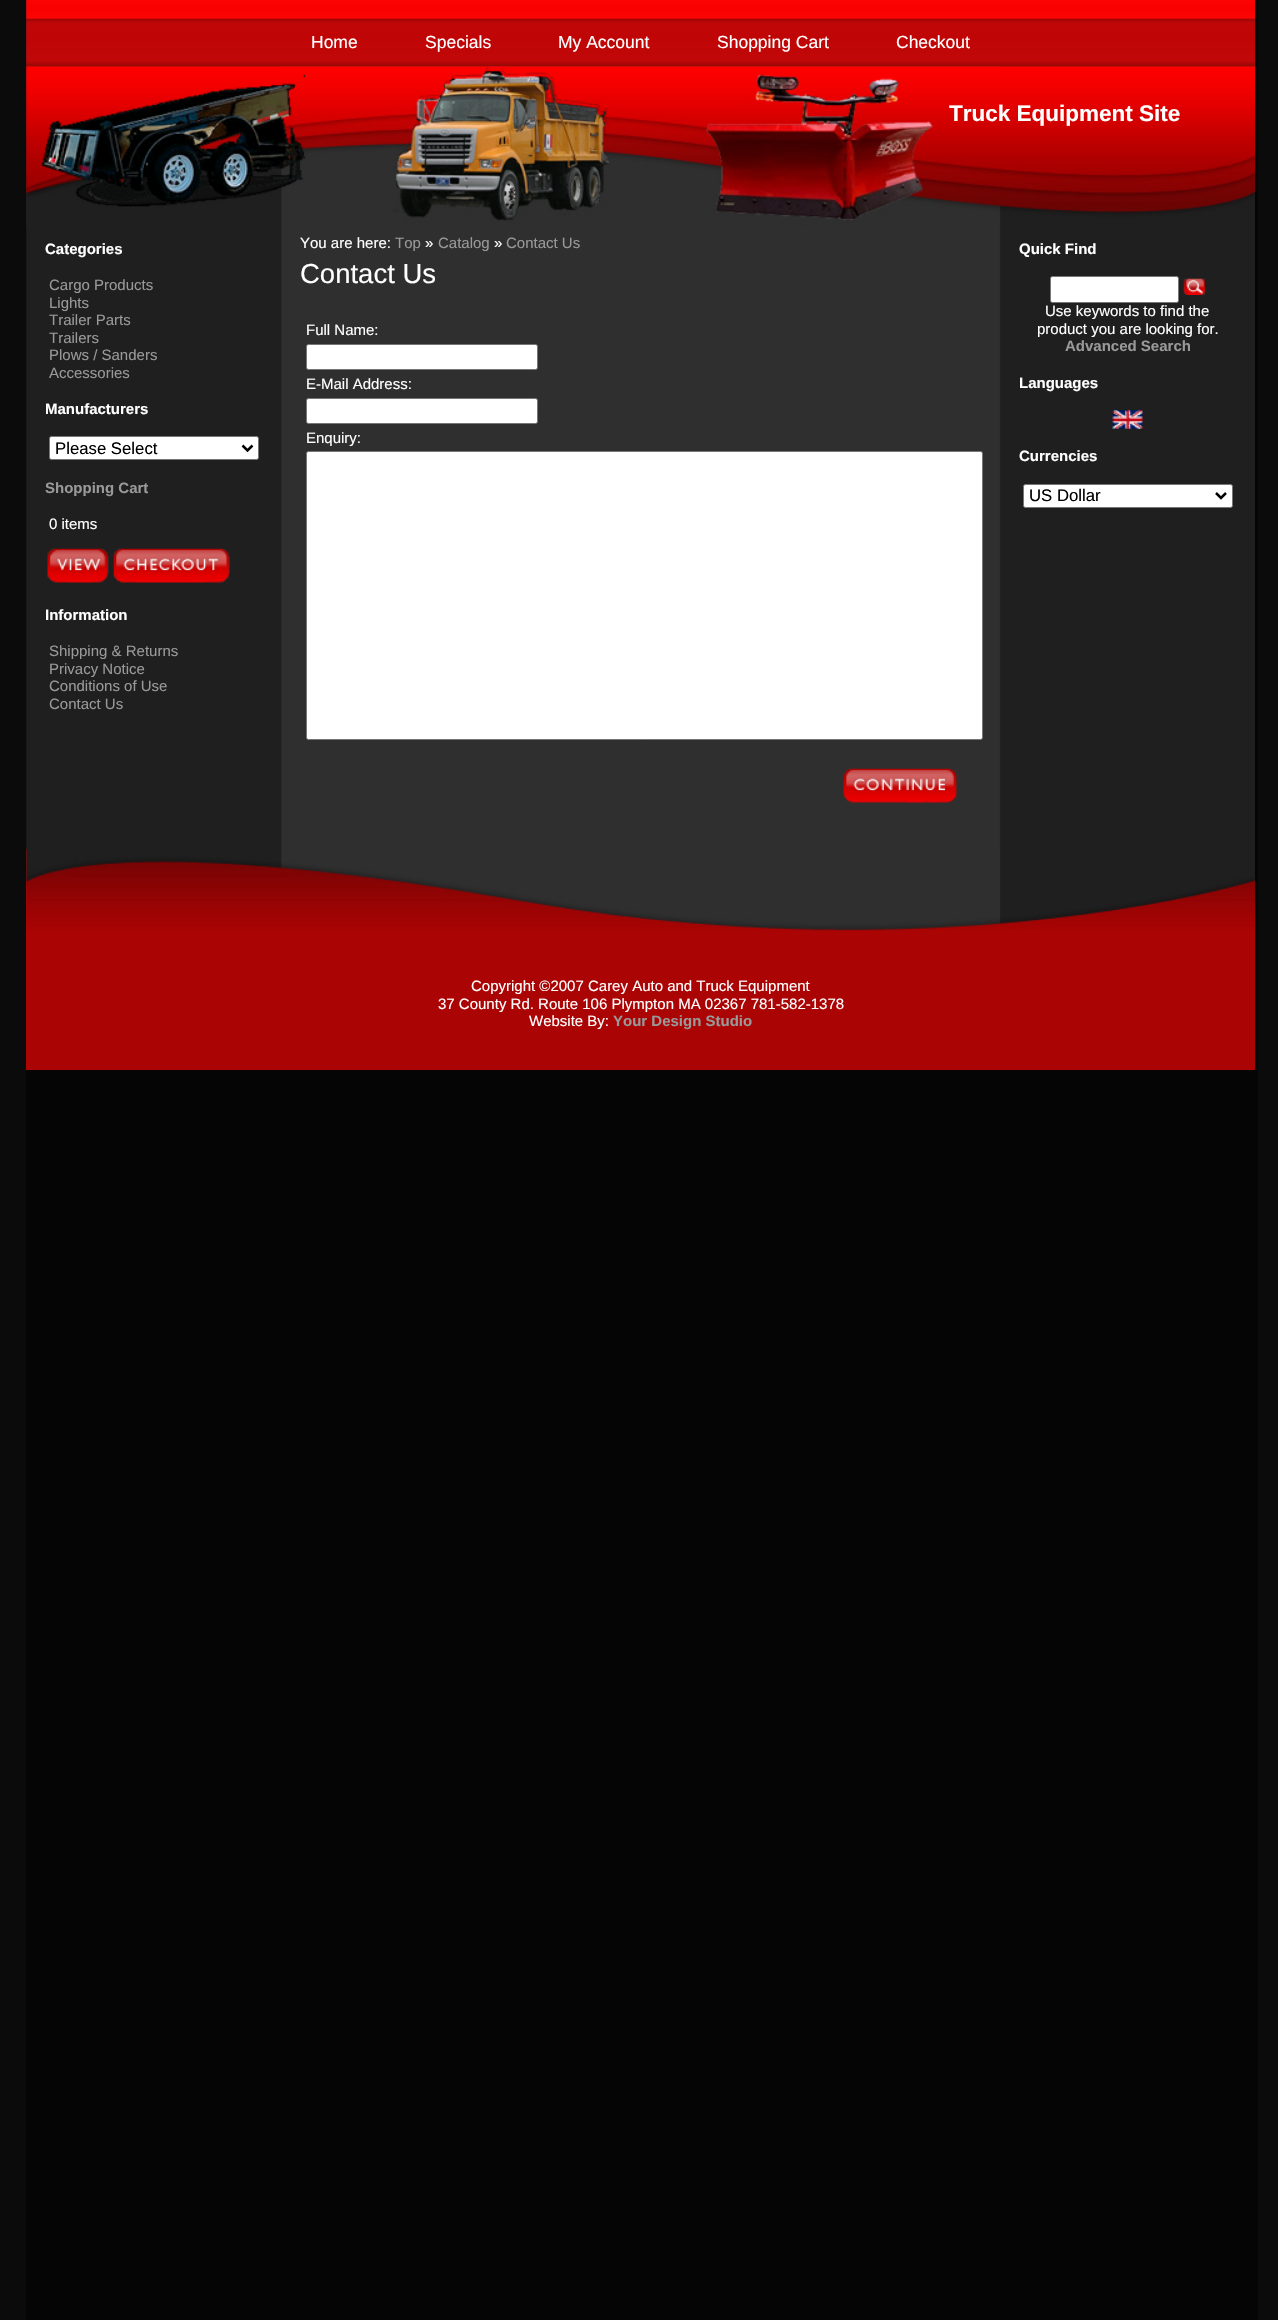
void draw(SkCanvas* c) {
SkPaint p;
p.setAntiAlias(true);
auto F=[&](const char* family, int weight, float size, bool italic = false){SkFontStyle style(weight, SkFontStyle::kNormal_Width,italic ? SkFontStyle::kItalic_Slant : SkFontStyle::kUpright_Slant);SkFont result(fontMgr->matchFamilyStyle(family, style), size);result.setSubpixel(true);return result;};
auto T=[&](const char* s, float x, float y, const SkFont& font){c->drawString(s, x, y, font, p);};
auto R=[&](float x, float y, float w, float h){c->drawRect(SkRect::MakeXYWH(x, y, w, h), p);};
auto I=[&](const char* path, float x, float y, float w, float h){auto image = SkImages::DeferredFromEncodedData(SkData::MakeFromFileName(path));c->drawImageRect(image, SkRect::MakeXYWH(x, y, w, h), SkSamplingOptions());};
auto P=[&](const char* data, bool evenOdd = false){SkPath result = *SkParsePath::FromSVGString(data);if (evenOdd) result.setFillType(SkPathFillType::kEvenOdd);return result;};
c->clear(0xff0b0b0b);
p.setColor(0xff050505);
R(26,0,1232,2320);
I("1.png",26,0,1229,849);
I("2.png",26,0,1229,67);
auto f1 = F("Liberation Sans",400,17.5);
p.setColor(0xffffffff);
T("Home",311,48,f1);
T("Specials",425,48,f1);
T("My Account",558,48,f1);
T("Shopping Cart",717,48,f1);
T("Checkout",896,48,f1);
I("3.png",26,66,1229,161);
auto f2 = F("Liberation Sans",700,22.5);
T("Truck Equipment Site",949,121,f2);
auto f3 = F("Liberation Sans",700,15);
T("Categories",45,254,f3);
auto f4 = F("Liberation Sans",400,15);
p.setColor(0xff999999);
T("Cargo Products",49,290,f4);
T("Lights",49,308,f4);
T("Trailer Parts",49,325,f4);
T("Trailers",49,343,f4);
T("Plows / Sanders",49,360,f4);
T("Accessories",49,378,f4);
p.setColor(0xffffffff);
T("Manufacturers",45,414,f3);
c->drawRoundRect(SkRect::MakeXYWH(49.5,436.5,209,23),2,2,p);
p.setStroke(true);
p.setStrokeWidth(1);
p.setColor(0xff767676);
c->drawRoundRect(SkRect::MakeXYWH(49.5,436.5,209,23),2,2,p);
p.setStrokeWidth(2.5);
p.setColor(0xff000000);
c->drawPath(P("M242.5 445.5l5 5l5-5"),p);
auto f5 = F("Liberation Sans",400,16.75);
p.setStroke(false);
T("Please Select",55,454,f5);
p.setColor(0xff999999);
T("Shopping Cart",45,493,f3);
p.setColor(0xffffffff);
T("0 items",49,529,f4);
I("4.png",47,548,62,35);
I("5.png",113,548,117,35);
T("Information",45,620,f3);
p.setColor(0xff999999);
T("Shipping & Returns",49,656,f4);
T("Privacy Notice",49,674,f4);
T("Conditions of Use",49,691,f4);
T("Contact Us",49,709,f4);
p.setColor(0xffffffff);
T("You are here:",300,248,f4);
p.setColor(0xff999999);
T("Top",395,248,f4);
p.setColor(0xffffffff);
T("»",425,248,f4);
p.setColor(0xff999999);
T("Catalog",438,248,f4);
p.setColor(0xffffffff);
T("»",494,248,f4);
p.setColor(0xff999999);
T("Contact Us",506,248,f4);
auto f6 = F("Liberation Sans",400,27.5);
p.setColor(0xffffffff);
T("Contact Us",300,283,f6);
T("Full Name:",306,335,f4);
c->drawRoundRect(SkRect::MakeXYWH(306.5,344.5,231,25),2,2,p);
p.setStroke(true);
p.setStrokeWidth(1);
p.setColor(0xff767676);
c->drawRoundRect(SkRect::MakeXYWH(306.5,344.5,231,25),2,2,p);
p.setStroke(false);
p.setColor(0xffffffff);
T("E-Mail Address:",306,389,f4);
c->drawRoundRect(SkRect::MakeXYWH(306.5,398.5,231,25),2,2,p);
p.setStroke(true);
p.setColor(0xff767676);
c->drawRoundRect(SkRect::MakeXYWH(306.5,398.5,231,25),2,2,p);
p.setStroke(false);
p.setColor(0xffffffff);
T("Enquiry:",306,443,f4);
c->drawRoundRect(SkRect::MakeXYWH(306.5,451.5,676,288),2,2,p);
p.setStroke(true);
p.setColor(0xff767676);
c->drawRoundRect(SkRect::MakeXYWH(306.5,451.5,676,288),2,2,p);
I("6.png",843,768,115,35);
p.setStroke(false);
p.setColor(0xffffffff);
T("Quick Find",1019,254,f3);
c->drawRoundRect(SkRect::MakeXYWH(1050.5,276.5,128,26),2,2,p);
p.setStroke(true);
p.setColor(0xff767676);
c->drawRoundRect(SkRect::MakeXYWH(1050.5,276.5,128,26),2,2,p);
I("7.png",1183,278,22,17);
p.setStroke(false);
p.setColor(0xffffffff);
T("Use keywords to find the",1045,316,f4);
T("product you are looking for.",1037,334,f4);
p.setColor(0xff999999);
T("Advanced Search",1065,351,f3);
p.setColor(0xffffffff);
T("Languages",1019,388,f3);
I("8.png",1112,410,31,19);
T("Currencies",1019,461,f3);
c->drawRoundRect(SkRect::MakeXYWH(1023.5,484.5,209,23),2,2,p);
p.setStroke(true);
p.setColor(0xff767676);
c->drawRoundRect(SkRect::MakeXYWH(1023.5,484.5,209,23),2,2,p);
p.setStrokeWidth(2.5);
p.setColor(0xff000000);
c->drawPath(P("M1216 493l5 5l5-5"),p);
p.setStroke(false);
T("US Dollar",1029,501,f5);
p.setColor(0xffaa0404);
R(26,849,1229,221);
I("9.png",26,849,1229,82);
p.setColor(0xffffffff);
T("Copyright ©2007 Carey Auto and Truck Equipment",471,991,f4);
T("37 County Rd. Route 106 Plympton MA 02367 781-582-1378",438,1009,f4);
T("Website By:",529,1026,f4);
p.setColor(0xff999999);
T("Your Design Studio",613,1026,f3);
}
